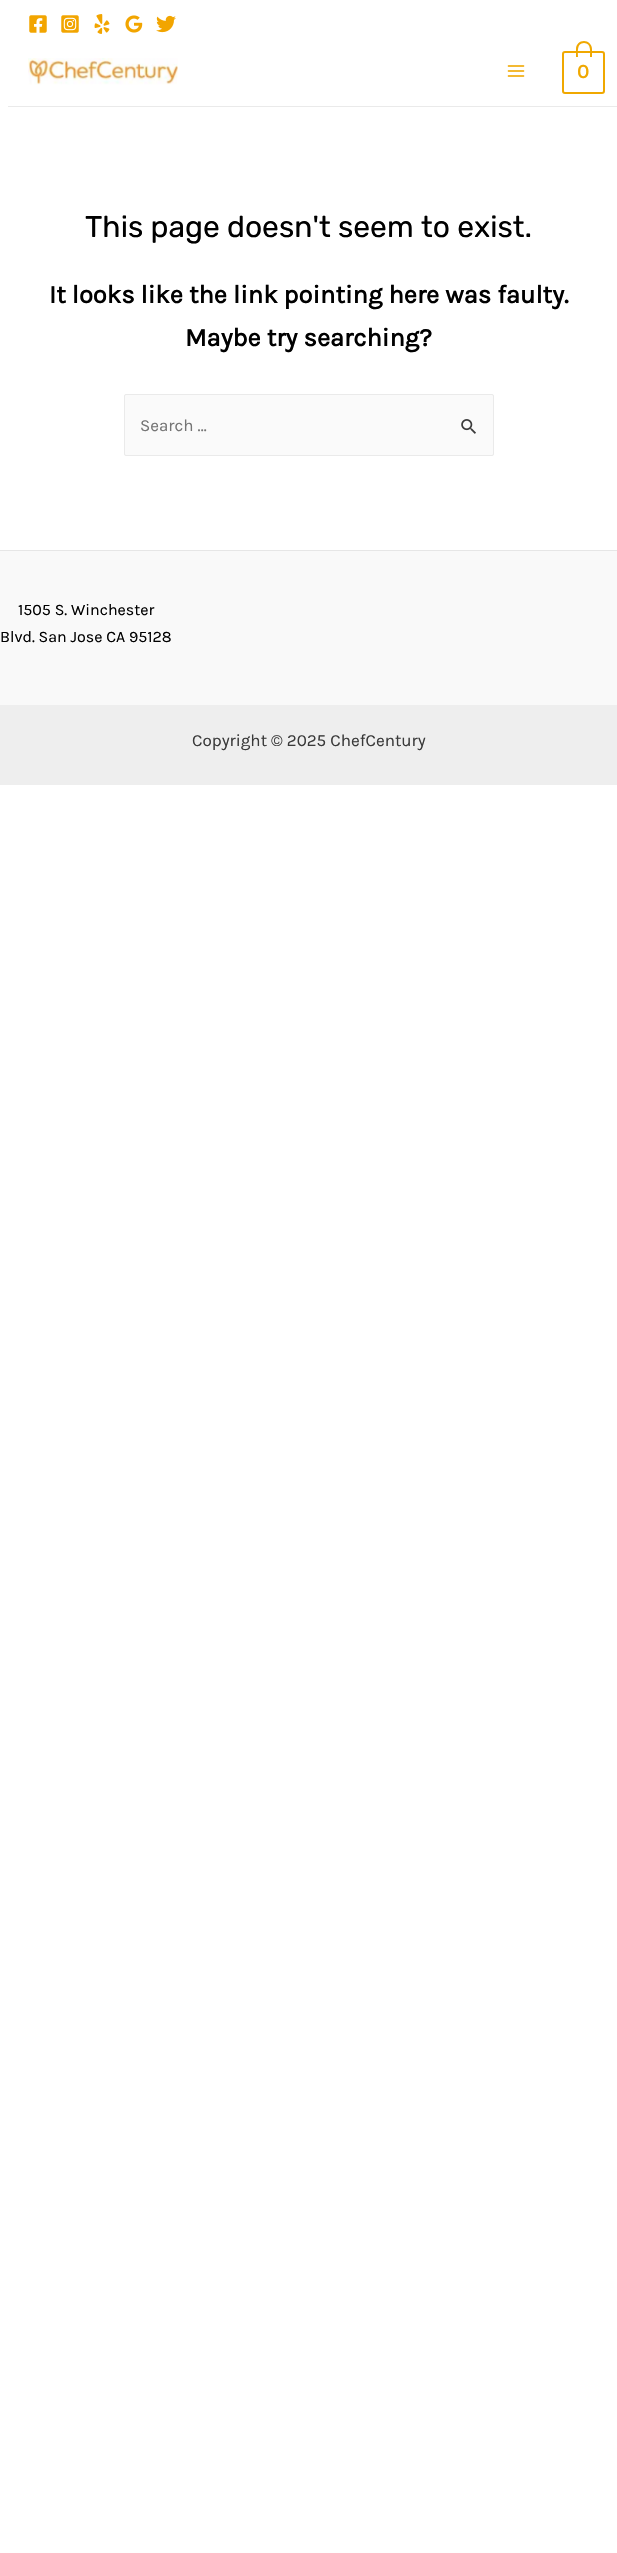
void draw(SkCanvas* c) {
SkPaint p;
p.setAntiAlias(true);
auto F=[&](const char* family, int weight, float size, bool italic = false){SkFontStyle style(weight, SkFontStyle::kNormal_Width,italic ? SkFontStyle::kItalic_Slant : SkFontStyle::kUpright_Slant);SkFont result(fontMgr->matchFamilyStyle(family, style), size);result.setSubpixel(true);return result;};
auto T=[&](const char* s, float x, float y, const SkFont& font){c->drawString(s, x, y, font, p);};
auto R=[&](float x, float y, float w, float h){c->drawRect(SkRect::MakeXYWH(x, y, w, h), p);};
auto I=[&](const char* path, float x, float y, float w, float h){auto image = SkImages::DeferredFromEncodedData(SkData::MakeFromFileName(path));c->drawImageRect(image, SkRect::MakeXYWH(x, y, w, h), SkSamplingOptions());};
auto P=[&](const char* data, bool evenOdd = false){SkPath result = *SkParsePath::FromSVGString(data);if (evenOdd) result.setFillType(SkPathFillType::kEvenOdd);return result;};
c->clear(0xffffffff);
I("1.png",29,15,18,18);
I("2.png",61,15,18,18);
I("3.png",94,14,16,20);
I("4.png",125,15,18,18);
I("5.png",156,15,20,18);
p.setColor(0xffeaeaea);
R(8,106,609,1);
I("6.png",28,58,150,27);
I("7.png",507,65,18,12);
p.setStroke(true);
p.setStrokeWidth(2);
p.setColor(0xfff0a800);
c->drawRoundRect(SkRect::MakeXYWH(563,52,41,41),2,2,p);
p.setStroke(false);
c->drawPath(P("M584 41c4 0 8 3.5 8 8v8h-16v-8c0-4.5 3.5-8 8-8zm0 2c7.5 0 6 9 6 14h-12c0-5-1.5-14 6-14z",true),p);
auto f1 = F("Karla",700,20);
T("0",577,78,f1);
auto f2 = F("Rubik",300,30);
p.setColor(0xff000000);
T("This page doesn't seem to exist.",85,237,f2);
auto f3 = F("Karla",700,25.5);
T("It looks like the link pointing here was faulty.",49,303,f3);
T("Maybe try searching?",185,346,f3);
p.setColor(0xfffafafa);
c->drawRoundRect(SkRect::MakeXYWH(124.5,394.5,369,61),1.5,1.5,p);
p.setStroke(true);
p.setStrokeWidth(1);
p.setColor(0xffeaeaea);
c->drawRoundRect(SkRect::MakeXYWH(124.5,394.5,369,61),1.5,1.5,p);
auto f4 = F("Karla",400,17);
p.setStroke(false);
p.setColor(0xff757575);
T("Search …",140,431,f4);
I("8.png",461,419,15,15);
p.setColor(0xfff9f9f9);
R(0,551,617,154);
p.setColor(0xffe6e6e6);
R(0,550,617,1);
auto f5 = F("Karla",400,16);
p.setColor(0xff000000);
T("1505 S. Winchester",18,615,f5);
T("Blvd. San Jose CA 95128",0,642,f5);
p.setColor(0xffeeeeee);
R(0,705,617,80);
p.setColor(0xff3a3a3a);
T("Copyright © 2025 ChefCentury",192,746,f4);
}
